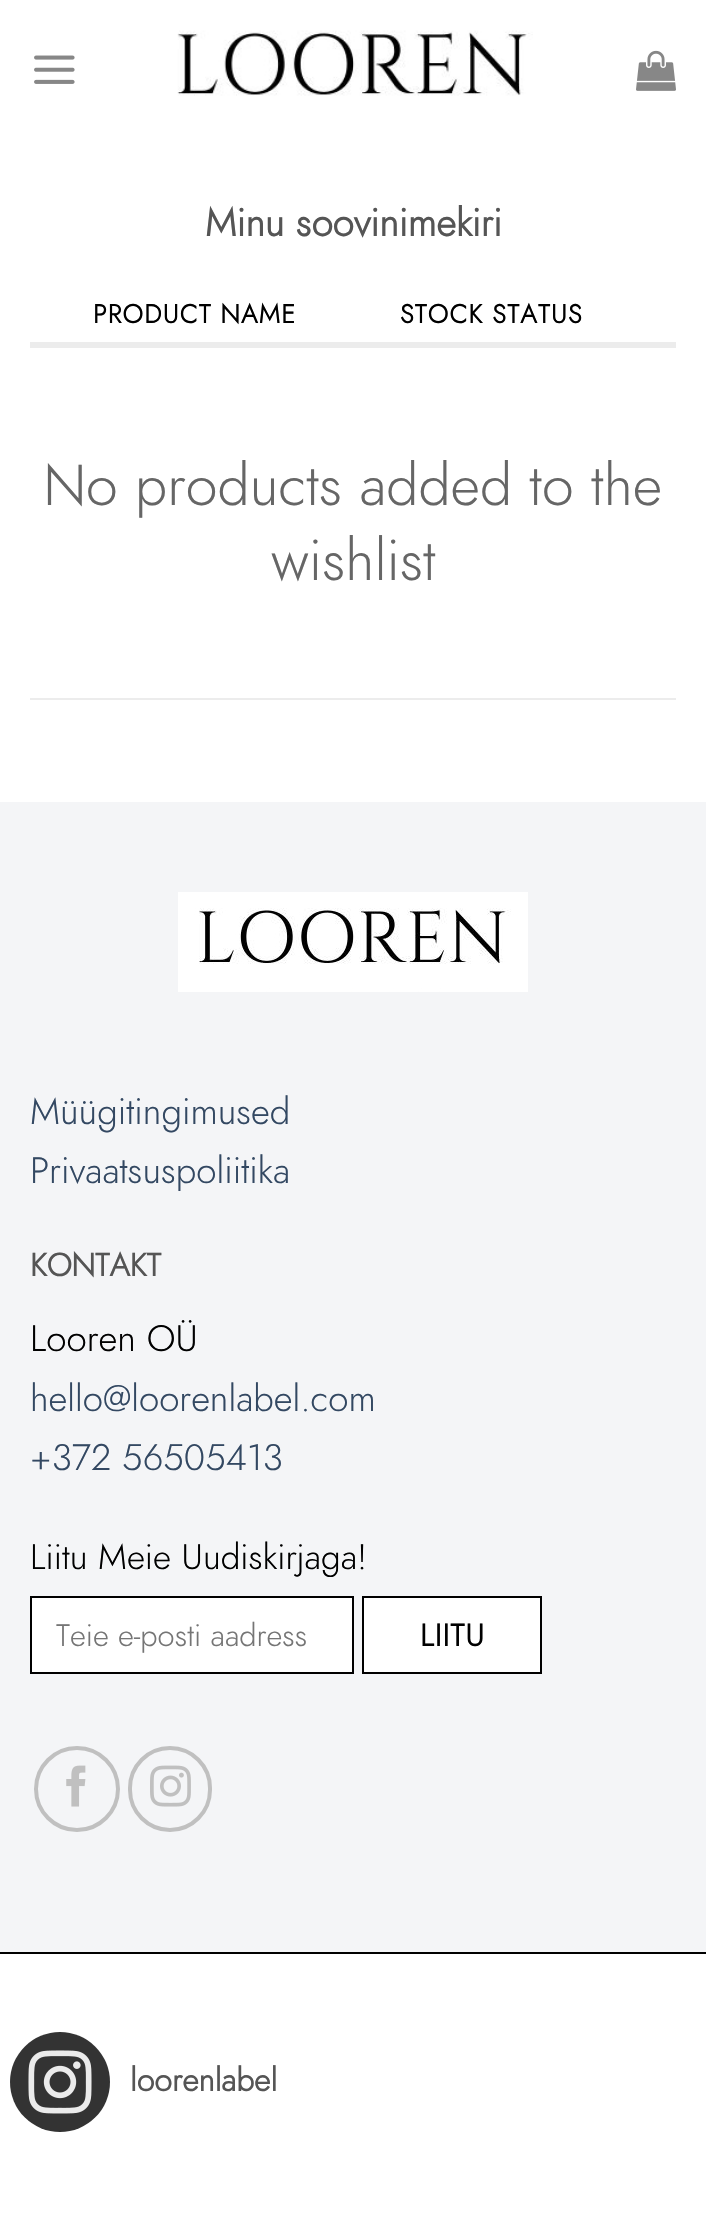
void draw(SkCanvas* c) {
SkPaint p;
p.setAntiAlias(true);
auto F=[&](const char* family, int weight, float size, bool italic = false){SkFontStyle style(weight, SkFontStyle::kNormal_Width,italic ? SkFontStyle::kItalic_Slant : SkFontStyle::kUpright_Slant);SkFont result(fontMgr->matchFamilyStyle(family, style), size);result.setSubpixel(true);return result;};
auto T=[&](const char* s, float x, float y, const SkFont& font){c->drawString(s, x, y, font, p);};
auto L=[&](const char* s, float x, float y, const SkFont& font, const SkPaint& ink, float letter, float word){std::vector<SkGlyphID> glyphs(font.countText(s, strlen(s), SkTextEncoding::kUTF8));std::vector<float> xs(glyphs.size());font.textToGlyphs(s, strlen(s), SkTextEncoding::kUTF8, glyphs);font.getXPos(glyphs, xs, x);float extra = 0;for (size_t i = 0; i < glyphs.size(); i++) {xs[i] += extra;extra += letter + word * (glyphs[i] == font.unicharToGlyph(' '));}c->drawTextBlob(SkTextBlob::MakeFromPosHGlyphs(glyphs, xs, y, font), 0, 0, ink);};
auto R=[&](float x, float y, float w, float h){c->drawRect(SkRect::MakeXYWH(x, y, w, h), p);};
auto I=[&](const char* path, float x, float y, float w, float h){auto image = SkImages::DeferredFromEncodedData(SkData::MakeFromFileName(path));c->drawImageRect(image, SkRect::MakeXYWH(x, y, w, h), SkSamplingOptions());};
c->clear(0xffffffff);
I("1.png",34,55,41,29);
I("2.png",177,30,356,66);
I("3.png",636,50,40,41);
auto f1 = F("Jost",700,38.5);
p.setColor(0xff555555);
T("Minu soovinimekiri",205,236,f1);
auto f2 = F("Jost",700,26);
p.setColor(0xff000000);
L("PRODUCT NAME",93,323,f2,p,1.25,0);
L("STOCK STATUS",400,323,f2,p,1.25,0);
p.setColor(0xffececec);
R(30,342,646,6);
R(30,698,646,2);
auto f3 = F("Jost",300,57.6);
p.setColor(0xff666666);
T("No products added to the",44,505,f3);
T("wishlist",271,580,f3);
p.setColor(0xfff4f5f7);
R(0,802,706,1150);
I("4.png",178,892,350,100);
auto f4 = F("Jost",300,36.75);
p.setColor(0xff334862);
T("Müügitingimused",30,1124,f4);
T("Privaatsuspoliitika",30,1183,f4);
auto f5 = F("Jost",700,32);
p.setColor(0xff555555);
T("KONTAKT",30,1276,f5);
p.setColor(0xff000000);
T("Looren OÜ",30,1351,f4);
p.setColor(0xff334862);
T("hello@loorenlabel.com",30,1411,f4);
T("+372 56505413",30,1470,f4);
auto f6 = F("Jost",300,35.25);
p.setColor(0xff000000);
T("Liitu Meie Uudiskirjaga!",30,1569,f6);
p.setColor(0xffffffff);
c->drawRect(SkRect::MakeXYWH(31,1597,322,76),p);
p.setStroke(true);
p.setStrokeWidth(2);
p.setColor(0xff000000);
c->drawRect(SkRect::MakeXYWH(31,1597,322,76),p);
auto f7 = F("Jost",300,31);
p.setStroke(false);
p.setColor(0xff757575);
T("Teie e-posti aadress",56,1646,f7);
p.setColor(0xffffffff);
c->drawRect(SkRect::MakeXYWH(363,1597,178,76),p);
p.setStroke(true);
p.setColor(0xff000000);
c->drawRect(SkRect::MakeXYWH(363,1597,178,76),p);
auto f8 = F("Jost",700,31);
p.setStroke(false);
L("LIITU",420,1646,f8,p,1,0);
p.setStroke(true);
p.setStrokeWidth(4);
p.setColor(0xffc0c0c0);
c->drawCircle(77,1789,41,p);
I("5.png",66,1765,20,42);
c->drawRoundRect(SkRect::MakeXYWH(130,1748,80,82),40,40,p);
I("6.png",150,1765,41,42);
p.setStroke(false);
p.setColor(0xff000000);
R(0,1952,706,2);
p.setColor(0xff333333);
c->drawCircle(60,2082,50,p);
I("7.png",28,2050,64,64);
p.setColor(0xff555555);
T("loorenlabel",130,2091,f5);
}
